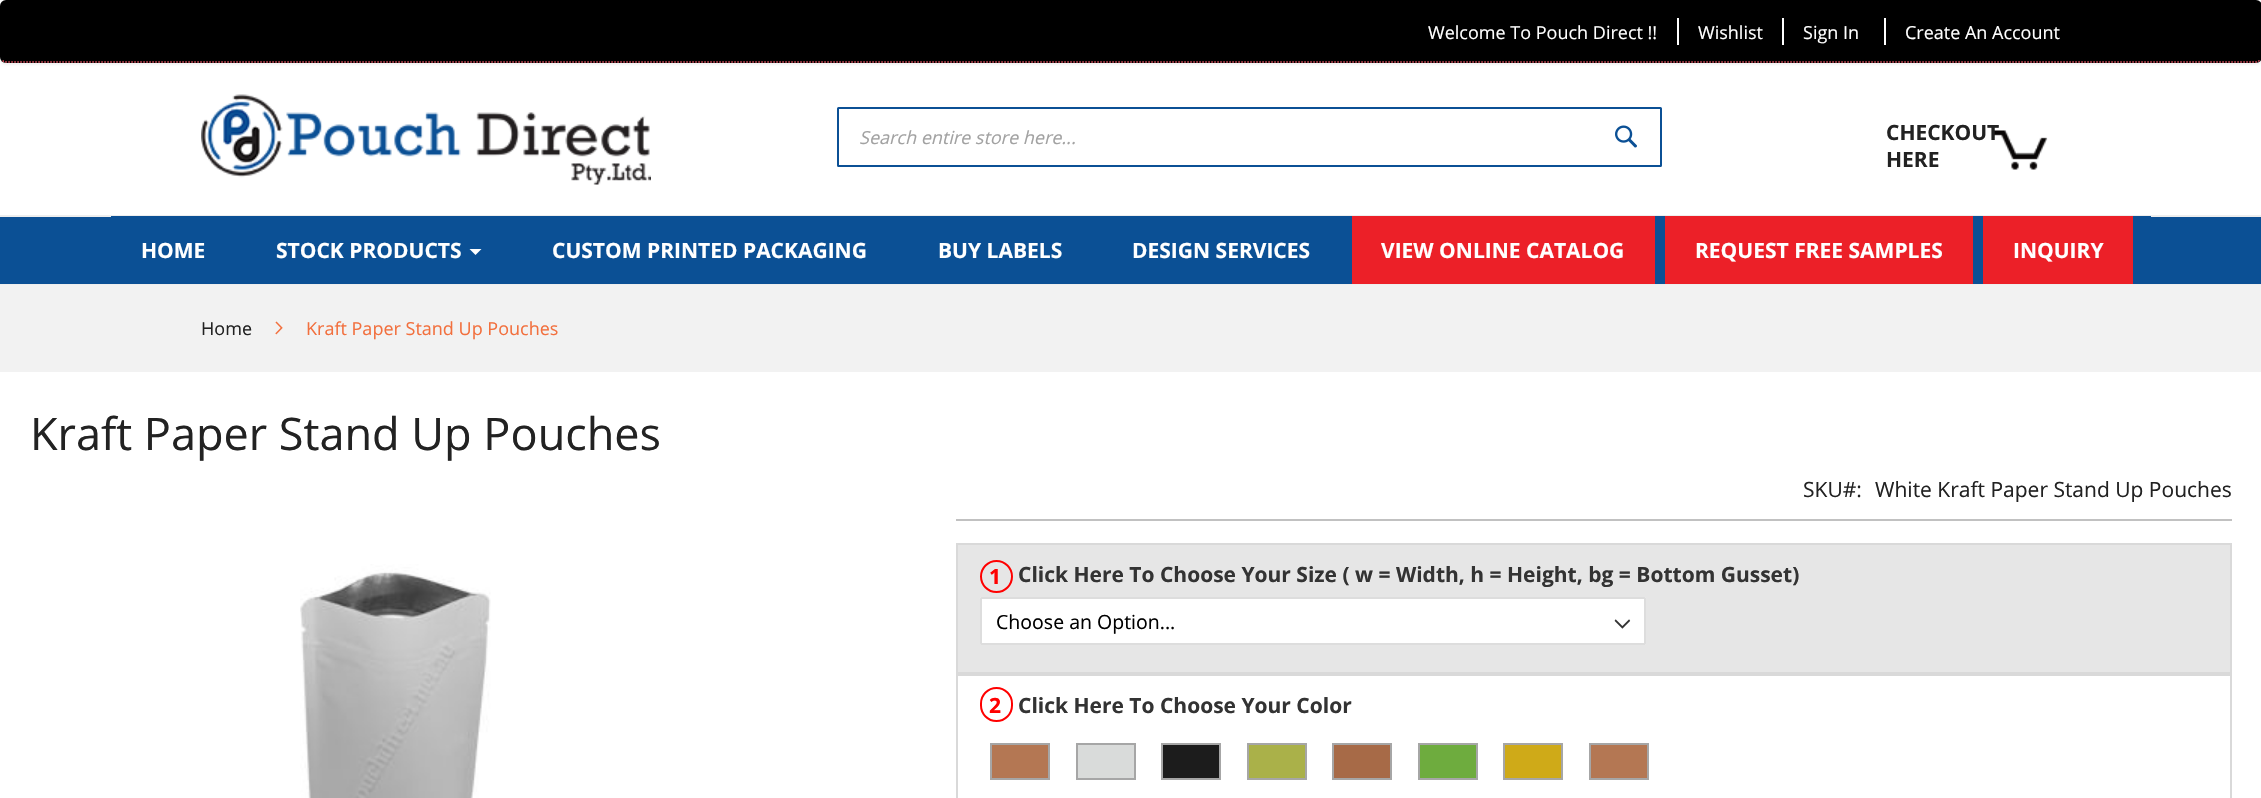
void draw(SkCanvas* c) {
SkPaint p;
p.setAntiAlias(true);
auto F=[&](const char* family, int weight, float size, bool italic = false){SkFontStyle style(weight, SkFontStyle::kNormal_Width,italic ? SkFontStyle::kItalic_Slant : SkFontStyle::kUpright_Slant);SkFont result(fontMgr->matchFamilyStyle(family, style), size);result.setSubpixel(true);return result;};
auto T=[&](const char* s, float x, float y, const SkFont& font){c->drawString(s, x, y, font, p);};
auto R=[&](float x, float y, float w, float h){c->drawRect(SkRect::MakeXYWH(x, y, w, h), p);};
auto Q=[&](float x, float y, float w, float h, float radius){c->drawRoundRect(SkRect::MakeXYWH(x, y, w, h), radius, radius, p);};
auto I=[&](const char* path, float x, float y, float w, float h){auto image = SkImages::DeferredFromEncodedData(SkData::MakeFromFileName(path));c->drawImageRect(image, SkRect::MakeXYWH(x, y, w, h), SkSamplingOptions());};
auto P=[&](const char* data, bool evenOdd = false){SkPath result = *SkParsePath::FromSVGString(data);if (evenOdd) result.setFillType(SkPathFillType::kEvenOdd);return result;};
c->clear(0xffffffff);
p.setColor(0x0d000000);
p.setMaskFilter(SkMaskFilter::MakeBlur(kNormal_SkBlurStyle, 1));
c->drawRoundRect(SkRect::MakeXYWH(0,2,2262,63),6,6,p);
p.setMaskFilter(nullptr);
p.setColor(0xff000000);
Q(0,0,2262,63,6);
p.setStroke(true);
p.setStrokeWidth(1.5);
p.setColor(0xffed5565);
p.setPathEffect(SkDashPathEffect::Make({{1.5f,1.5f}}, 0));
c->drawPath(P("M2259.5 60.5c-1 1-2 1.5-3.5 1.5h-2250c-1.5 0-2.5-.5-3.5-1.5"),p);
p.setPathEffect(nullptr);
auto f1 = F("Open Sans",400,18);
p.setStroke(false);
p.setColor(0xffffffff);
T("Welcome To Pouch Direct !!",1428,39,f1);
R(1677,18,2,27);
T("Wishlist",1698,39,f1);
R(1782,18,2,27);
T("Sign In",1803,39,f1);
R(1884,18,2,27);
T("Create An Account",1905,39,f1);
I("1.png",201,94,450,91);
p.setStroke(true);
p.setStrokeWidth(2);
p.setColor(0xff0b5095);
c->drawRoundRect(SkRect::MakeXYWH(838,108,823,58),.5,.5,p);
auto f2 = F("Open Sans",400,18,true);
p.setStroke(false);
p.setColor(0xffa2a2a2);
T("Search entire store here...",859,144,f2);
I("2.png",1615,125,22,23);
I("3.png",1992,130,56,40);
auto f3 = F("Open Sans",700,21);
p.setColor(0xff222222);
T("CHECKOUT",1886,140,f3);
T("HERE",1886,167,f3);
p.setColor(0xff0b5095);
R(0,217,2261,67);
p.setColor(0xffeeeeee);
R(0,215,2261,2);
R(0,284,2261,1);
p.setColor(0xff0b5095);
R(111,216,2040,1);
p.setColor(0xffffffff);
T("HOME",141,258,f3);
T("STOCK PRODUCTS",276,258,f3);
c->drawPath(P("M469.5 249h12l-6 6z"),p);
T("CUSTOM PRINTED PACKAGING",552,258,f3);
T("BUY LABELS",938,258,f3);
T("DESIGN SERVICES",1132,258,f3);
p.setColor(0xffec2028);
R(1352,216,303,68);
p.setColor(0xffffffff);
T("VIEW ONLINE CATALOG",1381,258,f3);
p.setColor(0xffec2028);
R(1665,216,308,68);
p.setColor(0xffffffff);
T("REQUEST FREE SAMPLES",1695,258,f3);
p.setColor(0xffec2028);
R(1983,216,150,68);
p.setColor(0xffffffff);
T("INQUIRY",2013,258,f3);
p.setColor(0xfff2f2f2);
R(0,285,2261,87);
p.setColor(0xff222222);
T("Home",201,335,f1);
I("4.png",275,321,8,14);
p.setColor(0xfff2703e);
T("Kraft Paper Stand Up Pouches",306,335,f1);
auto f4 = F("Open Sans",400,45);
p.setColor(0xff222222);
T("Kraft Paper Stand Up Pouches",30,450,f4);
I("5.png",300,564,191,234);
p.setColor(0xffc1c1c1);
R(956,519,1276,2);
auto f5 = F("Open Sans",400,21);
p.setColor(0xff222222);
T("SKU#:",1803,497,f5);
T("White Kraft Paper Stand Up Pouches",1875,497,f5);
p.setColor(0xffe6e6e6);
c->drawRect(SkRect::MakeXYWH(957,544,1274,129),p);
p.setStroke(true);
p.setColor(0xffd9d9d9);
c->drawRect(SkRect::MakeXYWH(957,544,1274,129),p);
p.setColor(0xffff0000);
c->drawCircle(996.5,576.5,15.5,p);
p.setStroke(false);
T("1",989,584,f3);
p.setColor(0xff333333);
T("Click Here To Choose Your Size ( w = Width, h = Height, bg = Bottom Gusset)",1018,582,f3);
p.setColor(0xffffffff);
Q(980,597,666,48,1.5);
I("6.png",1614,619,17,10);
p.setStroke(true);
p.setColor(0xffdddddd);
c->drawRoundRect(SkRect::MakeXYWH(981,598,664,46),.5,.5,p);
auto f6 = F("Open Sans",400,19.5);
p.setStroke(false);
p.setColor(0xff000000);
T("Choose an Option...",996,629,f6);
p.setStroke(true);
p.setColor(0xffd9d9d9);
c->drawRect(SkRect::MakeXYWH(957,675,1274,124),p);
p.setColor(0xffff0000);
c->drawRoundRect(SkRect::MakeXYWH(981,688,31,33),15.5,15.5,p);
p.setStroke(false);
T("2",989,713,f3);
p.setColor(0xff333333);
T("Click Here To Choose Your Color",1018,713,f3);
p.setColor(0xffb47753);
c->drawRect(SkRect::MakeXYWH(991,744,58,35),p);
p.setStroke(true);
p.setColor(0xffa6a6a6);
c->drawRect(SkRect::MakeXYWH(991,744,58,35),p);
p.setStroke(false);
p.setColor(0xffd9dbda);
c->drawRect(SkRect::MakeXYWH(1077,744,58,35),p);
p.setStroke(true);
p.setColor(0xffa6a6a6);
c->drawRect(SkRect::MakeXYWH(1077,744,58,35),p);
p.setStroke(false);
p.setColor(0xff1c1c1c);
c->drawRect(SkRect::MakeXYWH(1162,744,58,35),p);
p.setStroke(true);
p.setColor(0xffa6a6a6);
c->drawRect(SkRect::MakeXYWH(1162,744,58,35),p);
p.setStroke(false);
p.setColor(0xffaab149);
c->drawRect(SkRect::MakeXYWH(1248,744,58,35),p);
p.setStroke(true);
p.setColor(0xffa6a6a6);
c->drawRect(SkRect::MakeXYWH(1248,744,58,35),p);
p.setStroke(false);
p.setColor(0xffa76a47);
c->drawRect(SkRect::MakeXYWH(1333,744,58,35),p);
p.setStroke(true);
p.setColor(0xffa6a6a6);
c->drawRect(SkRect::MakeXYWH(1333,744,58,35),p);
p.setStroke(false);
p.setColor(0xff6eac3e);
c->drawRect(SkRect::MakeXYWH(1419,744,58,35),p);
p.setStroke(true);
p.setColor(0xffa6a6a6);
c->drawRect(SkRect::MakeXYWH(1419,744,58,35),p);
p.setStroke(false);
p.setColor(0xffcfaa18);
c->drawRect(SkRect::MakeXYWH(1504,744,58,35),p);
p.setStroke(true);
p.setColor(0xffa6a6a6);
c->drawRect(SkRect::MakeXYWH(1504,744,58,35),p);
p.setStroke(false);
p.setColor(0xffb47753);
c->drawRect(SkRect::MakeXYWH(1590,744,58,35),p);
p.setStroke(true);
p.setColor(0xffa6a6a6);
c->drawRect(SkRect::MakeXYWH(1590,744,58,35),p);
}
